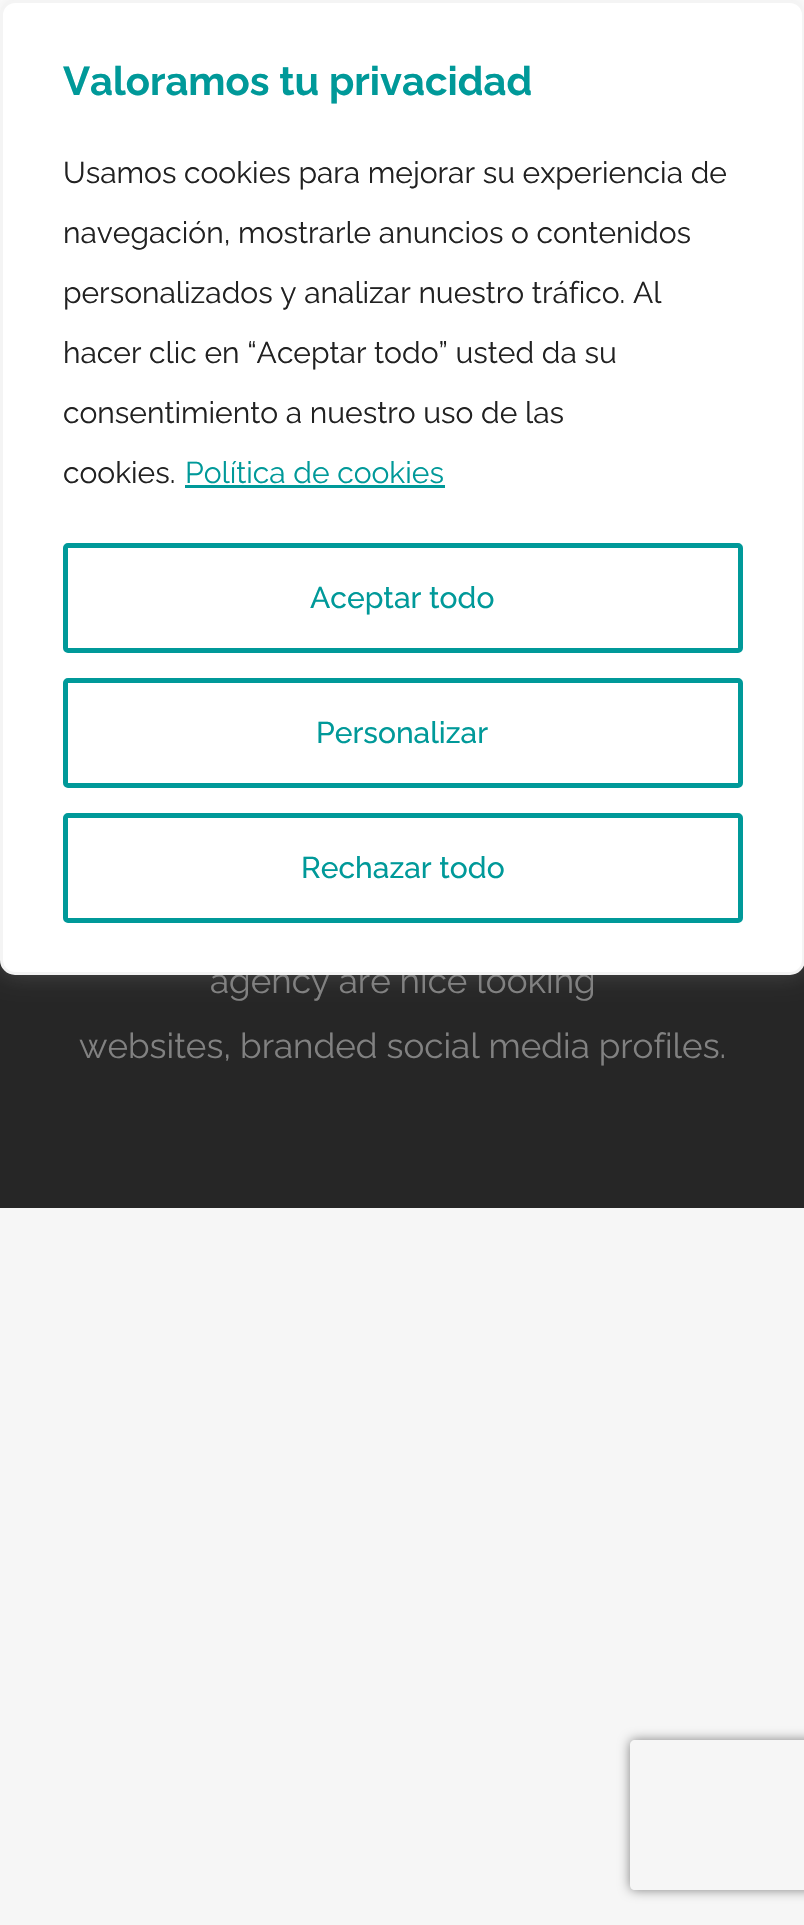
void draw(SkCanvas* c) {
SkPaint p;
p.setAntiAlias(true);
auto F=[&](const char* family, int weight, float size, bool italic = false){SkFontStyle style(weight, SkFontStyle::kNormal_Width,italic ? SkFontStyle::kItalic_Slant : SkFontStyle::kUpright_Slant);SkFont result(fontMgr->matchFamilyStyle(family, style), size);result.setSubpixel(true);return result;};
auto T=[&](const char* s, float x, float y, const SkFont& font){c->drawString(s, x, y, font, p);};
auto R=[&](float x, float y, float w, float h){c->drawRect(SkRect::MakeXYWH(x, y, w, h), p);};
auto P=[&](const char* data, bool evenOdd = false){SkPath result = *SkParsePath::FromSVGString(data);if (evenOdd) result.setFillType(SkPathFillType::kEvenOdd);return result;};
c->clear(0xfff6f6f6);
p.setColor(0xffffffff);
R(0,0,804,15);
p.setColor(0xff262626);
R(0,960,804,248);
p.setColor(0x4dacabab);
p.setMaskFilter(SkMaskFilter::MakeBlur(kNormal_SkBlurStyle, 12.5));
c->drawRoundRect(SkRect::MakeXYWH(0,-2,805,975),15,15,p);
p.setMaskFilter(nullptr);
auto f1 = F("Raleway",400,35);
p.setColor(0xff818181);
T("agency are nice looking",210,993,f1);
p.setColor(0xffffffff);
c->drawRoundRect(SkRect::MakeXYWH(1.5,1.5,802,972),13.5,13.5,p);
p.setStroke(true);
p.setStrokeWidth(3);
p.setColor(0xfff4f4f4);
c->drawRoundRect(SkRect::MakeXYWH(1.5,1.5,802,972),13.5,13.5,p);
auto f2 = F("Raleway",700,40);
p.setStroke(false);
p.setColor(0xff009999);
T("Valoramos tu privacidad",63,95,f2);
auto f3 = F("Raleway",400,30);
p.setColor(0xff212121);
T("Usamos cookies para mejorar su experiencia de",63,183,f3);
T("navegación, mostrarle anuncios o contenidos",63,243,f3);
T("personalizados y analizar nuestro tráfico. Al",63,303,f3);
T("hacer clic en “Aceptar todo” usted da su",63,363,f3);
T("consentimiento a nuestro uso de las",63,423,f3);
T("cookies.",63,483,f3);
p.setColor(0xff009999);
T("Política de cookies",185,483,f3);
R(185,485,260,3);
p.setStroke(true);
p.setStrokeWidth(5);
c->drawRoundRect(SkRect::MakeXYWH(65.5,545.5,675,105),2.5,2.5,p);
auto f4 = F("Raleway",500,30);
p.setStroke(false);
T("Aceptar todo",310,608,f4);
p.setStroke(true);
c->drawRoundRect(SkRect::MakeXYWH(65.5,680.5,675,105),2.5,2.5,p);
p.setStroke(false);
T("Personalizar",316,743,f4);
p.setStroke(true);
c->drawRoundRect(SkRect::MakeXYWH(65.5,815.5,675,105),2.5,2.5,p);
p.setStroke(false);
T("Rechazar todo",301,878,f4);
p.setColor(0xff818181);
T("websites, branded social media profiles.",79,1058,f1);
c->save();
c->clipPath(P("M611 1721h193v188h-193zm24 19h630c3 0 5 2 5 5v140c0 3-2 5-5 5h-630c-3 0-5-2-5-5v-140c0-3 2-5 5-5z",true),true);
p.setColor(0xff808080);
p.setMaskFilter(SkMaskFilter::MakeBlur(kNormal_SkBlurStyle, 6));
c->drawRoundRect(SkRect::MakeXYWH(630,1740,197,150),5,5,p);
p.setMaskFilter(nullptr);
c->restore();
}
